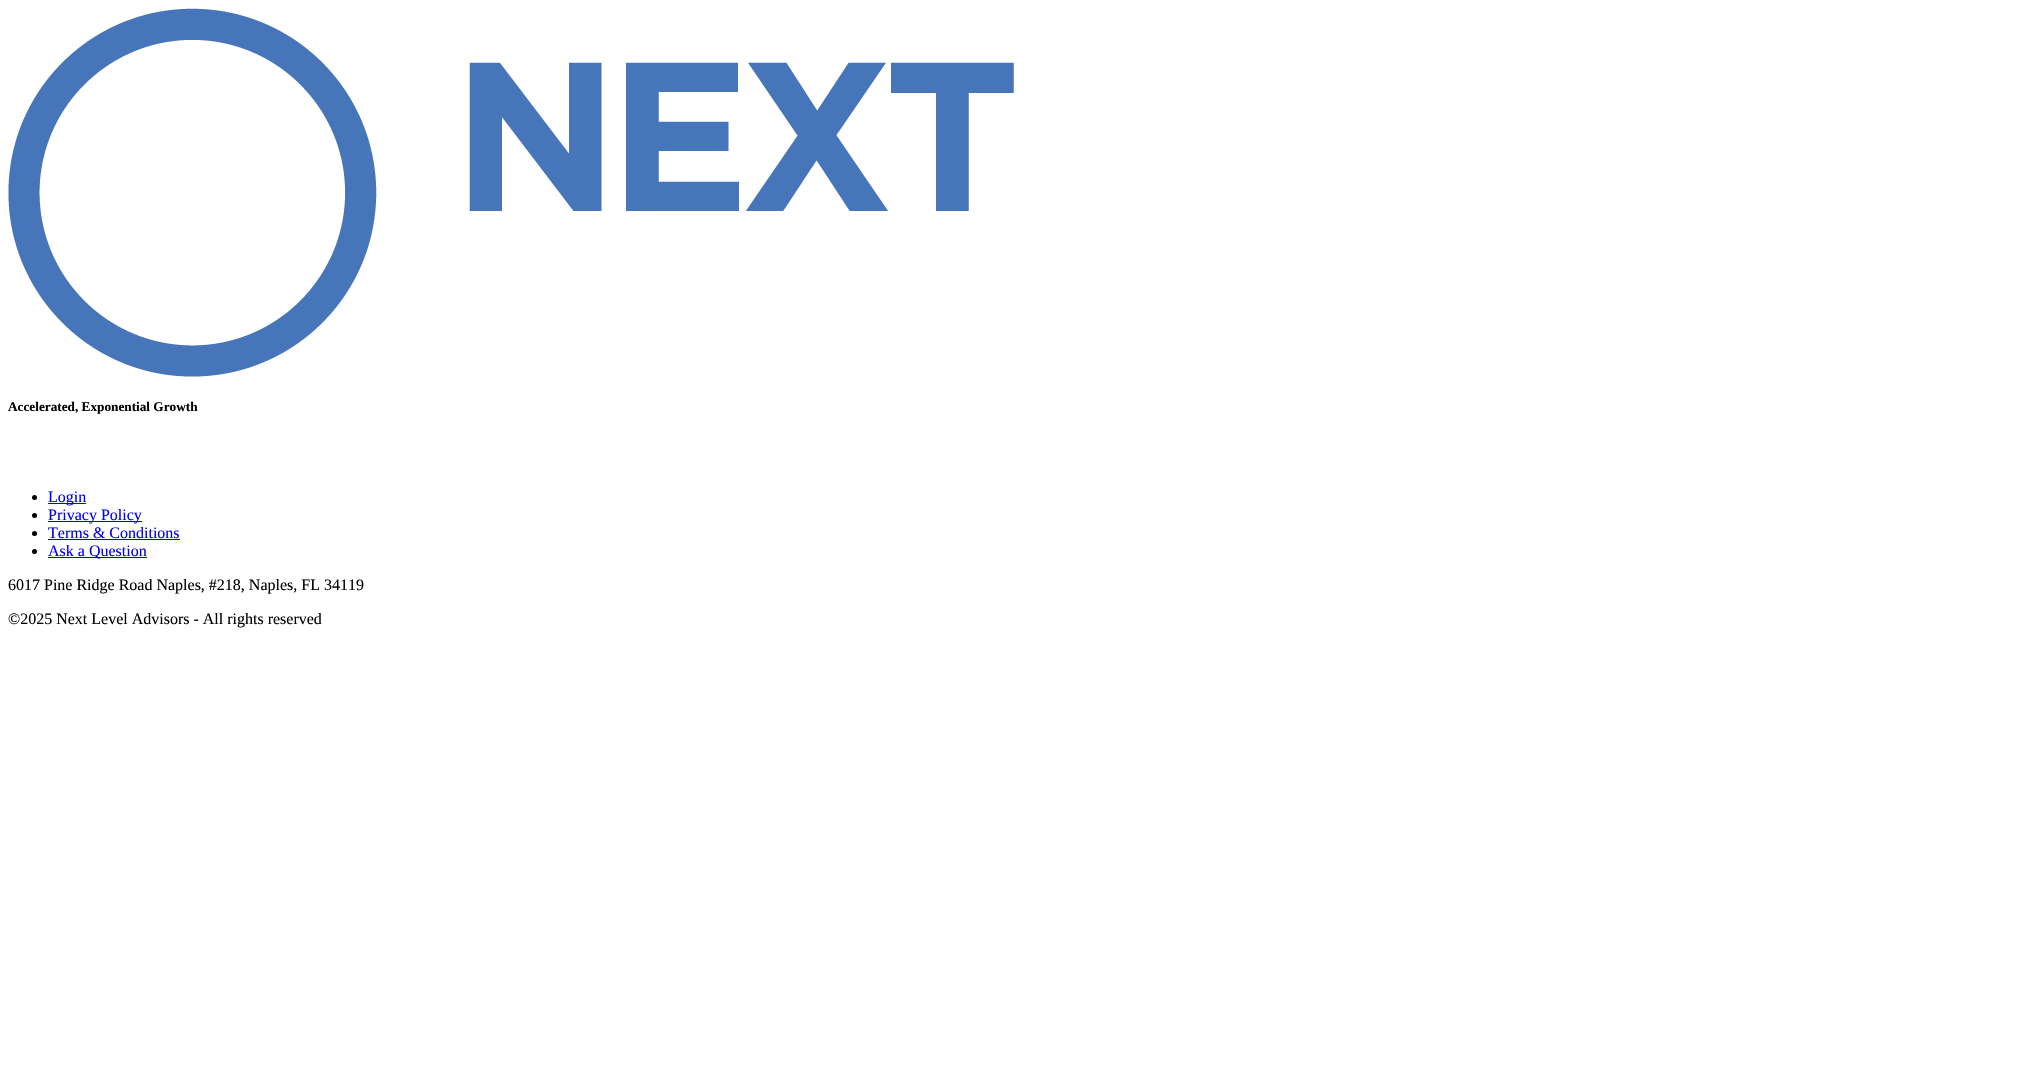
void draw(SkCanvas* c) {
SkPaint p;
p.setAntiAlias(true);
auto F=[&](const char* family, int weight, float size, bool italic = false){SkFontStyle style(weight, SkFontStyle::kNormal_Width,italic ? SkFontStyle::kItalic_Slant : SkFontStyle::kUpright_Slant);SkFont result(fontMgr->matchFamilyStyle(family, style), size);result.setSubpixel(true);return result;};
auto T=[&](const char* s, float x, float y, const SkFont& font){c->drawString(s, x, y, font, p);};
auto R=[&](float x, float y, float w, float h){c->drawRect(SkRect::MakeXYWH(x, y, w, h), p);};
auto I=[&](const char* path, float x, float y, float w, float h){auto image = SkImages::DeferredFromEncodedData(SkData::MakeFromFileName(path));c->drawImageRect(image, SkRect::MakeXYWH(x, y, w, h), SkSamplingOptions());};
c->clear(0xffffffff);
I("1.png",8,8,1006,369);
auto f1 = F("Liberation Serif",700,13.25);
p.setColor(0xff000000);
T("Accelerated, Exponential Growth",8,411,f1);
c->drawCircle(34.5,497.5,2.5,p);
p.setColor(0xff0000ee);
R(48,503,38,1);
auto f2 = F("Liberation Serif",400,16);
T("Login",48,502,f2);
p.setColor(0xff000000);
c->drawCircle(34.5,515.5,2.5,p);
p.setColor(0xff0000ee);
R(48,521,94,1);
T("Privacy Policy",48,520,f2);
p.setColor(0xff000000);
c->drawCircle(34.5,533.5,2.5,p);
p.setColor(0xff0000ee);
T("Terms & Conditions",48,538,f2);
R(48,539,132,1);
p.setColor(0xff000000);
c->drawCircle(34.5,551.5,2.5,p);
p.setColor(0xff0000ee);
R(48,557,99,1);
T("Ask a Question",48,556,f2);
p.setColor(0xff000000);
T("6017 Pine Ridge Road Naples, #218, Naples, FL 34119",8,590,f2);
T("©2025 Next Level Advisors - All rights reserved",8,624,f2);
}
